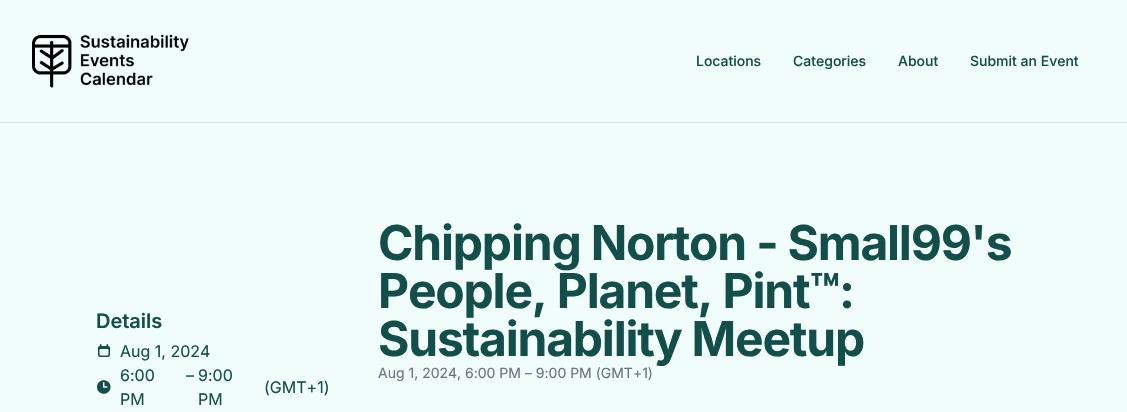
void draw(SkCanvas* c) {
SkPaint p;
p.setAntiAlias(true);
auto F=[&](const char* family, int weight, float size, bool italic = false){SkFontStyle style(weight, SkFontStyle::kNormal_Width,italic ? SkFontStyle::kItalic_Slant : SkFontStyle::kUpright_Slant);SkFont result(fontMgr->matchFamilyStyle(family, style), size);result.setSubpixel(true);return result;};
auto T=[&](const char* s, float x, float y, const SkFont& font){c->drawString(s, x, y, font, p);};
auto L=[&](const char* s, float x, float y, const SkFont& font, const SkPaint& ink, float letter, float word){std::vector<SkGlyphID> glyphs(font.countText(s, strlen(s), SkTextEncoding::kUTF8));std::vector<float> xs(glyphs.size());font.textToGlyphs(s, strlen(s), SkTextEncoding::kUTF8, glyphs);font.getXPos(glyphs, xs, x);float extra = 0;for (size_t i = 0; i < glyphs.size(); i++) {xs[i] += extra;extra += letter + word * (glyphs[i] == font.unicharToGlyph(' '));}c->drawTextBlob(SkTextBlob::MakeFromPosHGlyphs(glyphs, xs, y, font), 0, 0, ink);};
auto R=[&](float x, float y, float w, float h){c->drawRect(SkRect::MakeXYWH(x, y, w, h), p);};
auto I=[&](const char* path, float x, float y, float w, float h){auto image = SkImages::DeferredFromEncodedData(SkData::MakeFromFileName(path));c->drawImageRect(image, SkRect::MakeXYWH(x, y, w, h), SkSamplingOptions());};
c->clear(0xfff0fdfa);
p.setColor(0xffd8e4e1);
R(0,122,1127,1);
I("1.png",32,34,157,54);
auto f1 = F("Inter",500,14);
p.setColor(0xff134e4a);
T("Locations",696,66,f1);
T("Categories",793,66,f1);
T("About",898,66,f1);
T("Submit an Event",970,66,f1);
auto f2 = F("Inter",600,20);
T("Details",96,328,f2);
I("2.png",98,344,12,13);
auto f3 = F("Inter",400,16);
T("Aug 1, 2024",120,357,f3);
T("6:00",120,381,f3);
T("PM",120,405,f3);
T("–",186,381,f3);
T("9:00",198,381,f3);
T("PM",198,405,f3);
I("3.png",97,380,14,14);
T("(GMT+1)",264,393,f3);
auto f4 = F("Inter",700,48);
L("Chipping Norton - Small99's",378,260,f4,p,-1.2,0);
L("People, Planet, Pint™:",378,308,f4,p,-1.2,0);
L("Sustainability Meetup",378,356,f4,p,-1.2,0);
auto f5 = F("Inter",400,14);
p.setColor(0xff6b7280);
T("Aug 1, 2024, 6:00 PM – 9:00 PM (GMT+1)",378,378,f5);
}
